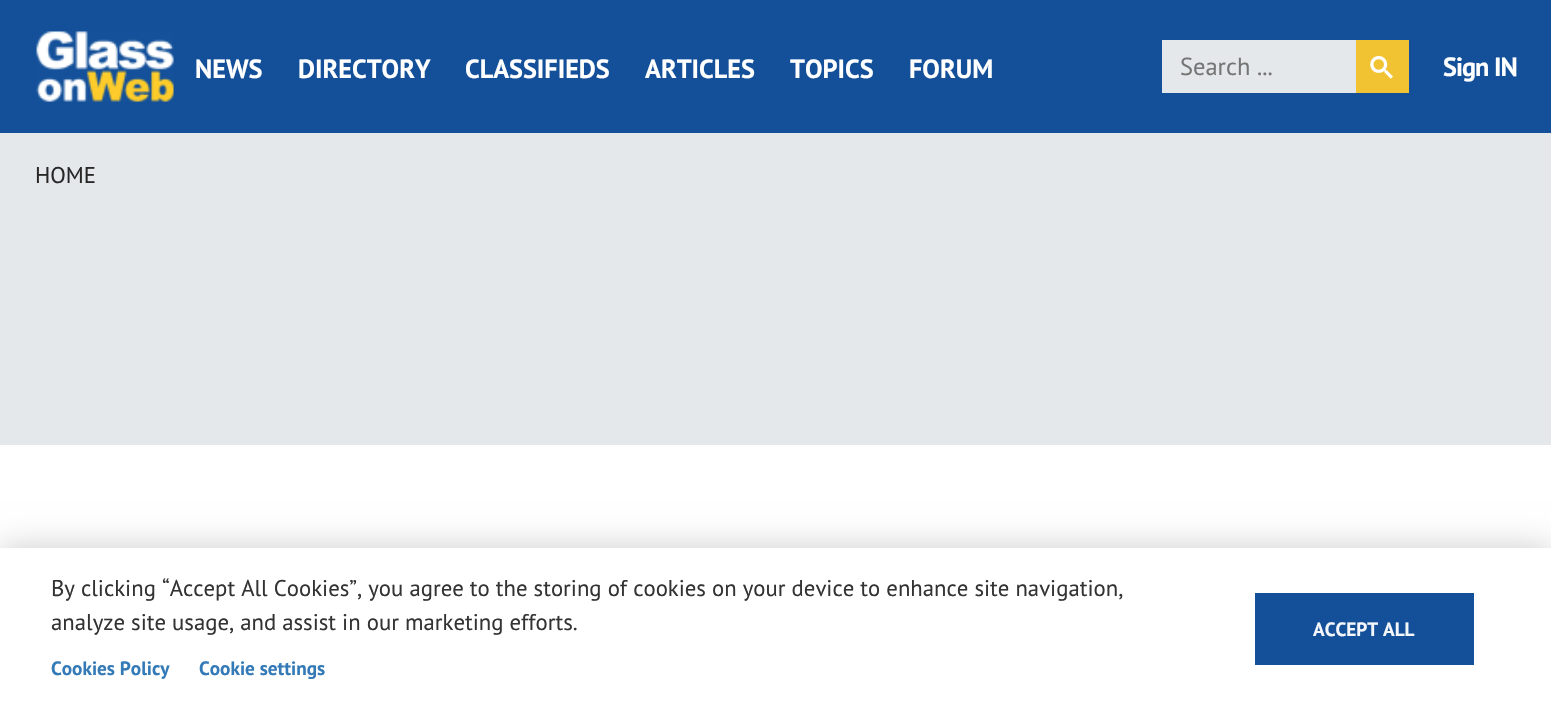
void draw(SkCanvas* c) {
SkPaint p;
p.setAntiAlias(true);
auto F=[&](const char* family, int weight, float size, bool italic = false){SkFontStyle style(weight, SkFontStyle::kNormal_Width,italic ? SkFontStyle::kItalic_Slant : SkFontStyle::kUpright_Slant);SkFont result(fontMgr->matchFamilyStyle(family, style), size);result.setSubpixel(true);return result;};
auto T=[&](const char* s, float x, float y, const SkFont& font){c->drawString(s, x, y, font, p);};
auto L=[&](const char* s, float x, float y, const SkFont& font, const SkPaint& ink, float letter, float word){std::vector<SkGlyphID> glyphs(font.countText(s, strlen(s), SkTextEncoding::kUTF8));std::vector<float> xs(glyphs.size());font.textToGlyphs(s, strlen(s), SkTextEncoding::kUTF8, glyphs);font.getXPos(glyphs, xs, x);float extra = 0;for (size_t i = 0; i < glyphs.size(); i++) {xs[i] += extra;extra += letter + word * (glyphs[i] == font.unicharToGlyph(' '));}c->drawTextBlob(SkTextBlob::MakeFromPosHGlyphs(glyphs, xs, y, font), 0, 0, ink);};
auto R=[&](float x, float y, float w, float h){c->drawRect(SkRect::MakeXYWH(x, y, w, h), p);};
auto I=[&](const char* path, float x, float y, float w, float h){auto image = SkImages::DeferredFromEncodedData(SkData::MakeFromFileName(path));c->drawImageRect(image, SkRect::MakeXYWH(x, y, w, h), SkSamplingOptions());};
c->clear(0xffffffff);
p.setColor(0xff145099);
R(0,0,1551,133);
I("1.png",36,31,138,71);
auto f1 = F("PT Sans",700,26.25);
p.setColor(0xffffffff);
T("NEWS",195,78,f1);
T("DIRECTORY",298,78,f1);
T("CLASSIFIEDS",465,78,f1);
T("ARTICLES",645,78,f1);
T("TOPICS",790,78,f1);
T("FORUM",909,78,f1);
p.setColor(0xffe5e8eb);
R(1162,40,194,53);
auto f2 = F("PT Sans",400,24.5);
p.setColor(0xff757575);
T("Search ...",1180,75,f2);
p.setColor(0xfff1c232);
R(1356,40,53,53);
I("2.png",1370,56,23,23);
p.setColor(0xffffffff);
L("Sign IN",1443,76,f1,p,-1,0);
p.setColor(0xffe5e8eb);
R(0,133,1551,312);
auto f3 = F("PT Sans",400,22.75);
p.setColor(0xff272727);
T("HOME",35,183,f3);
p.setColor(0x33000000);
p.setMaskFilter(SkMaskFilter::MakeBlur(kNormal_SkBlurStyle, 16));
c->drawRect(SkRect::MakeXYWH(0,548,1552,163),p);
p.setMaskFilter(nullptr);
p.setColor(0xffffffff);
R(0,548,1551,162);
p.setColor(0xff333333);
T("By clicking “Accept All Cookies”, you agree to the storing of cookies on your device to enhance site navigation,",51,596,f3);
T("analyze site usage, and assist in our marketing efforts.",51,630,f3);
auto f4 = F("PT Sans",700,19.25);
p.setColor(0xff337ab7);
T("Cookies Policy",51,675,f4);
T("Cookie settings",199,675,f4);
p.setColor(0xff145099);
R(1255,593,219,72);
p.setColor(0xfff3f6fa);
T("ACCEPT ALL",1313,636,f4);
}
